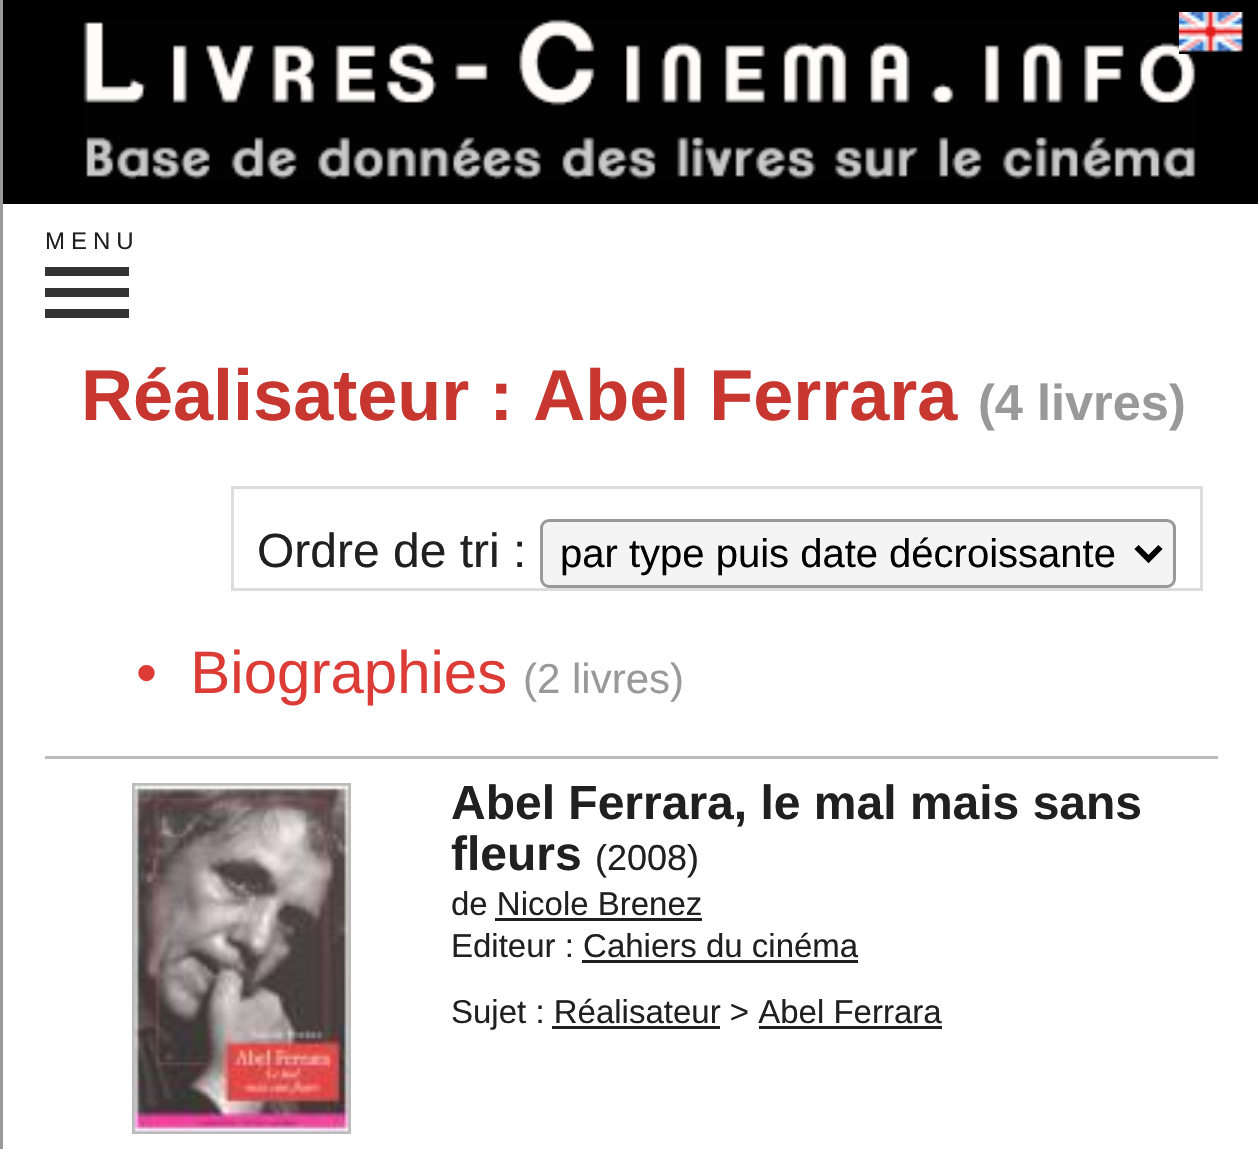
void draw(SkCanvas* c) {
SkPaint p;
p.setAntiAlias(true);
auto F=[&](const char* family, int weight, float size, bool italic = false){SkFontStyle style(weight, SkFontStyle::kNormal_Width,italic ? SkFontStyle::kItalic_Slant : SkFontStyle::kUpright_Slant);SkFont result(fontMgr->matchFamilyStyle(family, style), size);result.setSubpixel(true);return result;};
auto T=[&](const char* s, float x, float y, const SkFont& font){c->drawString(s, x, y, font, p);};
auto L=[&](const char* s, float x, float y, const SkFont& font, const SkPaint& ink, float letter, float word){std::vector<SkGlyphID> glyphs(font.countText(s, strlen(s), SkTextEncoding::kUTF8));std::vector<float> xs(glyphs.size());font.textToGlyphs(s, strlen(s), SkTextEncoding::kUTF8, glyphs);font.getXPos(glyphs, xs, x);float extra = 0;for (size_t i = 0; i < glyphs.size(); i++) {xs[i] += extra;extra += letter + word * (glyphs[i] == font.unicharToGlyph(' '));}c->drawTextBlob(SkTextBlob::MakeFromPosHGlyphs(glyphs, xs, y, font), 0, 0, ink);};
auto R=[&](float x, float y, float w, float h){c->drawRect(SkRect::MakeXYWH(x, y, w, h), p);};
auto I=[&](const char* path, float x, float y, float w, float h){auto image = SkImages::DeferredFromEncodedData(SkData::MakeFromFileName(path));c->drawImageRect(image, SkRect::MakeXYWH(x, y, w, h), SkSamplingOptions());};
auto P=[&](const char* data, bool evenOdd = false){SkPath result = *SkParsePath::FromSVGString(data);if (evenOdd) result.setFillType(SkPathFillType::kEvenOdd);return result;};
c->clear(0xffffffff);
p.setColor(0xff000000);
R(3,0,1255,204);
I("1.png",83,19,1113,161);
I("2.png",1179,12,65,42);
p.setColor(0xff999999);
R(0,0,3,1149);
auto f1 = F("Liberation Sans",400,24);
p.setColor(0xff202020);
L("MENU",45,249,f1,p,6,0);
p.setColor(0xff333333);
R(45,267,84,9);
R(45,288,84,9);
R(45,309,84,9);
auto f2 = F("Liberation Sans",700,72);
p.setColor(0xffc73730);
T("Réalisateur : Abel Ferrara",81,420,f2);
auto f3 = F("Liberation Sans",700,50.5);
p.setColor(0xff999999);
T("(4 livres)",978,420,f3);
p.setStroke(true);
p.setStrokeWidth(3);
p.setColor(0xffdddddd);
c->drawRect(SkRect::MakeXYWH(232.5,487.5,969,102),p);
auto f4 = F("Liberation Sans",400,48);
p.setStroke(false);
p.setColor(0xff202020);
T("Ordre de tri :",257,567,f4);
p.setColor(0xfff4f4f4);
c->drawRoundRect(SkRect::MakeXYWH(541.5,520.5,633,66),7.5,7.5,p);
p.setStroke(true);
p.setColor(0xff999999);
c->drawRoundRect(SkRect::MakeXYWH(541.5,520.5,633,66),7.5,7.5,p);
p.setStrokeWidth(6);
p.setColor(0xff000000);
c->drawPath(P("M1136.5 547l12 12l12-12"),p);
auto f5 = F("Liberation Sans",400,40);
p.setStroke(false);
T("par type puis date décroissante",560,567,f5);
auto f6 = F("Liberation Sans",400,60);
p.setColor(0xffdc3c35);
T("•  Biographies",136,693,f6);
auto f7 = F("Liberation Sans",400,42);
p.setColor(0xff999999);
T("(2 livres)",523,693,f7);
p.setColor(0xffbbbbbb);
R(45,756,1173,3);
p.setColor(0xffcccccc);
c->drawRect(SkRect::MakeXYWH(133.5,784.5,216,348),p);
p.setStroke(true);
p.setStrokeWidth(3);
p.setColor(0xffbbbbbb);
c->drawRect(SkRect::MakeXYWH(133.5,784.5,216,348),p);
I("3.png",134,785,215,347);
auto f8 = F("Liberation Sans",700,48);
p.setStroke(false);
p.setColor(0xff202020);
T("Abel Ferrara, le mal mais sans",451,819,f8);
T("fleurs",451,870,f8);
auto f9 = F("Liberation Sans",400,36);
T("(2008)",595,870,f9);
auto f10 = F("Liberation Sans",400,33);
T("de Nicole Brenez",451,915,f10);
R(495,918,207,3);
T("Editeur : Cahiers du cinéma",451,957,f10);
R(582,960,276,3);
T("Sujet : Réalisateur > Abel Ferrara",451,1023,f10);
R(552,1026,168,3);
R(759,1026,183,3);
}
